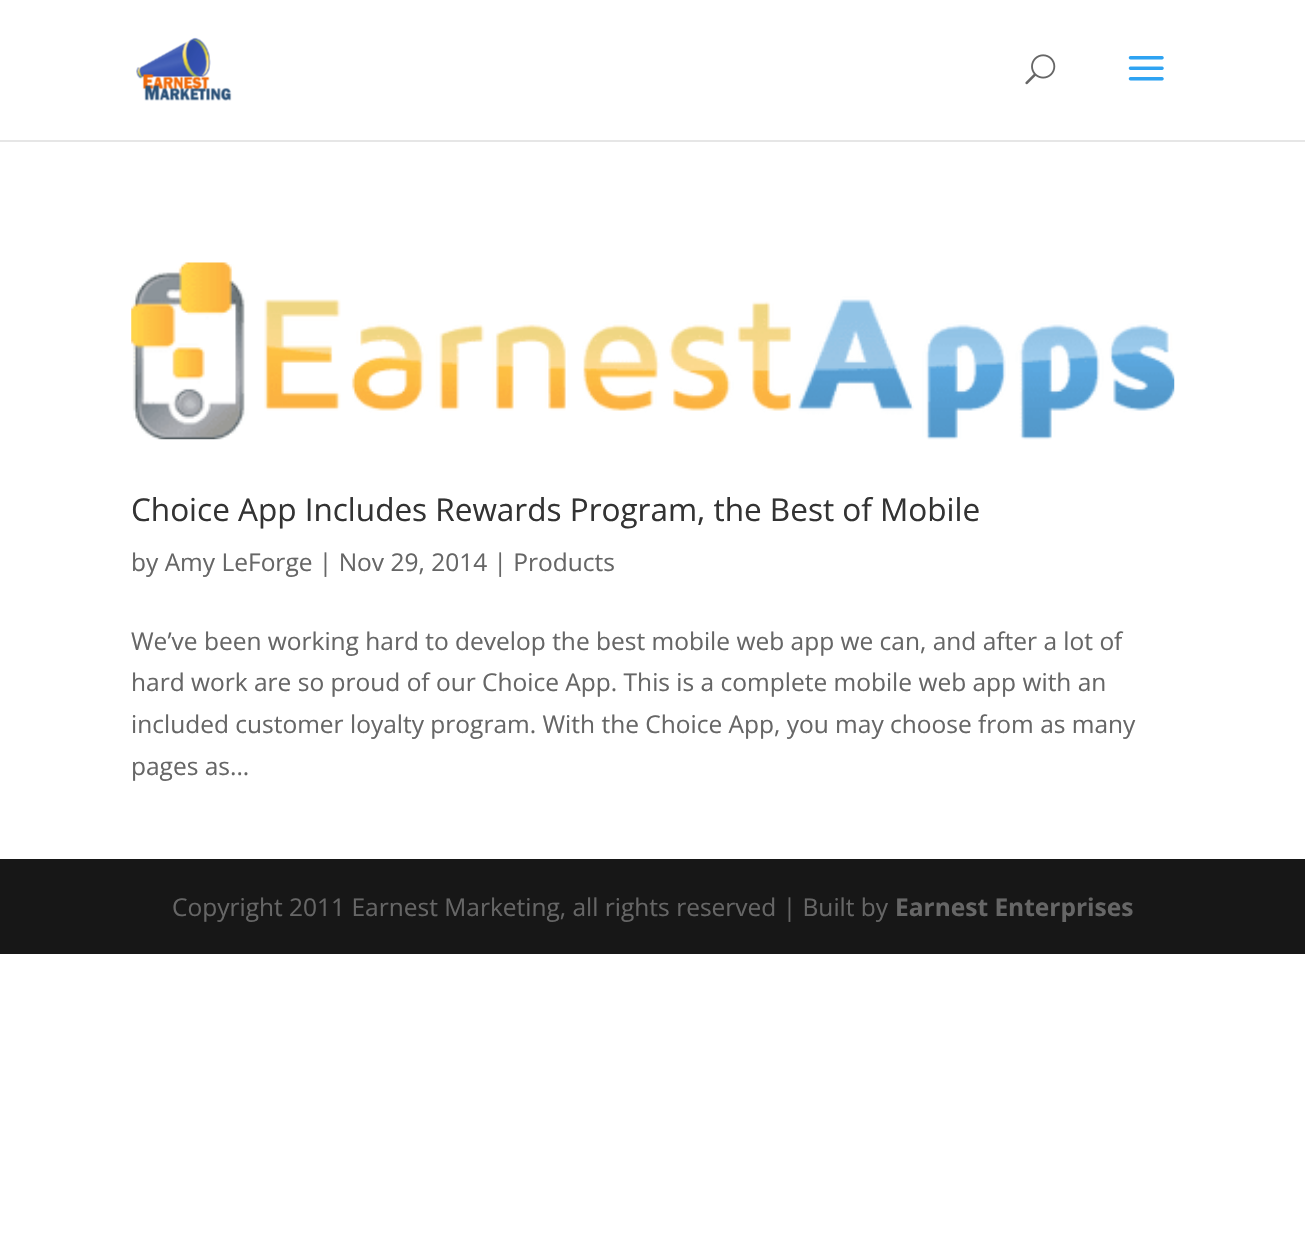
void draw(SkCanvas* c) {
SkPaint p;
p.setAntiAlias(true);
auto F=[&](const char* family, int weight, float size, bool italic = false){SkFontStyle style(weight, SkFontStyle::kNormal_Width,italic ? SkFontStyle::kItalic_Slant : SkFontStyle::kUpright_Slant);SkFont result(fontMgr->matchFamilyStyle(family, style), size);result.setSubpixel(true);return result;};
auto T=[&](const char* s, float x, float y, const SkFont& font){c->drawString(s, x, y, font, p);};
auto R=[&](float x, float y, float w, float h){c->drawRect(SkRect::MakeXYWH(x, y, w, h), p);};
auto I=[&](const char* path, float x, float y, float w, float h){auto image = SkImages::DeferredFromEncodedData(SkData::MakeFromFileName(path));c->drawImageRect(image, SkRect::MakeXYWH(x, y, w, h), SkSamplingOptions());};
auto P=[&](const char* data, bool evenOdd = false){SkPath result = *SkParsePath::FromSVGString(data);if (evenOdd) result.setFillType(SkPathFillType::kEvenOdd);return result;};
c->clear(0xffffffff);
p.setColor(0xffe6e6e6);
c->drawPath(P("M0 140v2h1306v-140v138z"),p);
I("1.png",136,37,96,64);
I("2.png",1025,54,31,31);
I("3.png",1128,56,36,25);
I("4.png",131,262,1044,178);
auto f1 = F("Open Sans",400,31.5);
p.setColor(0xff333333);
T("Choice App Includes Rewards Program, the Best of Mobile",131,521,f1);
auto f2 = F("Open Sans",400,24.5);
p.setColor(0xff666666);
T("by Amy LeForge | Nov 29, 2014 | Products",131,571,f2);
T("We’ve been working hard to develop the best mobile web app we can, and after a lot of",131,650,f2);
T("hard work are so proud of our Choice App. This is a complete mobile web app with an",131,691,f2);
T("included customer loyalty program. With the Choice App, you may choose from as many",131,733,f2);
T("pages as...",131,775,f2);
p.setColor(0xff171717);
R(0,859,1305,95);
p.setColor(0xff666666);
T("Copyright 2011 Earnest Marketing, all rights reserved | Built by",172,916,f2);
auto f3 = F("Open Sans",700,24.5);
T("Earnest Enterprises",895,916,f3);
}
